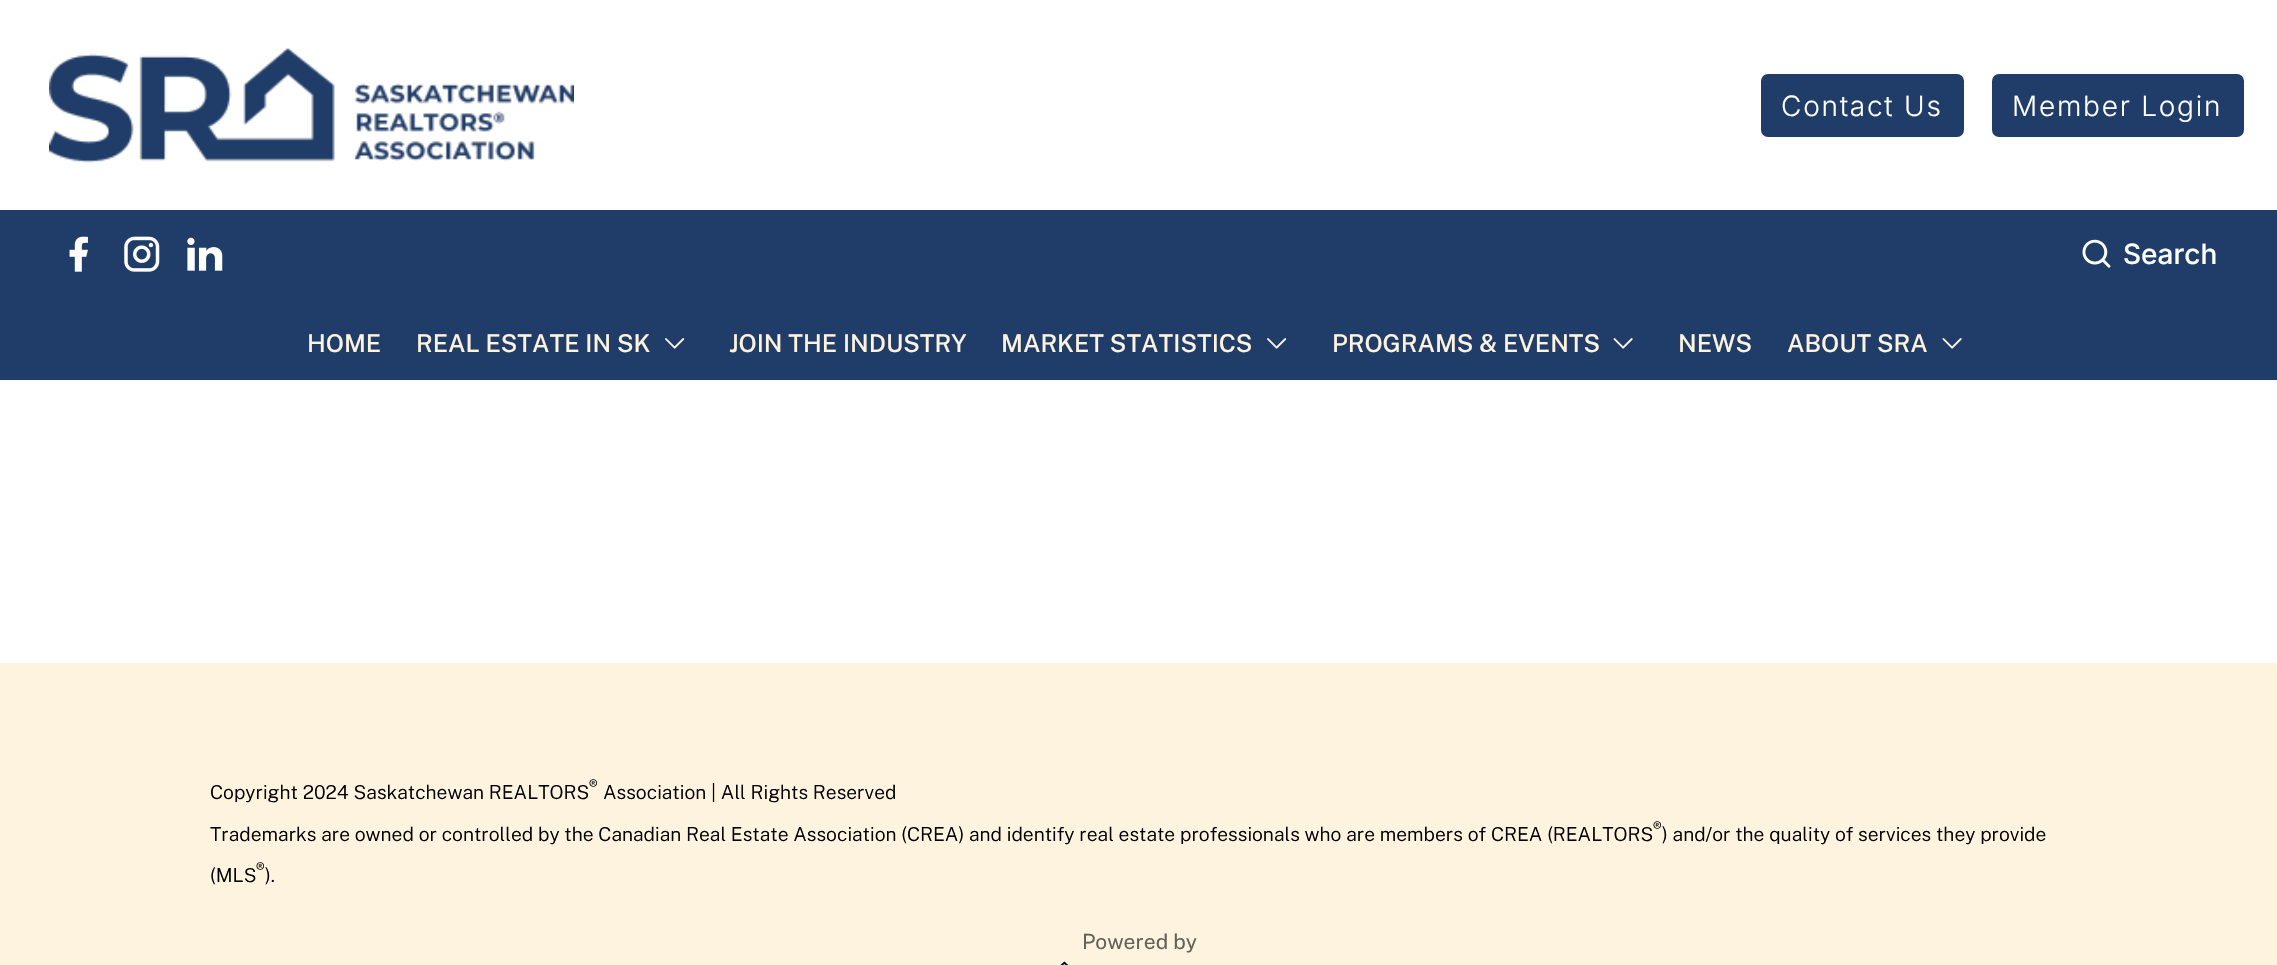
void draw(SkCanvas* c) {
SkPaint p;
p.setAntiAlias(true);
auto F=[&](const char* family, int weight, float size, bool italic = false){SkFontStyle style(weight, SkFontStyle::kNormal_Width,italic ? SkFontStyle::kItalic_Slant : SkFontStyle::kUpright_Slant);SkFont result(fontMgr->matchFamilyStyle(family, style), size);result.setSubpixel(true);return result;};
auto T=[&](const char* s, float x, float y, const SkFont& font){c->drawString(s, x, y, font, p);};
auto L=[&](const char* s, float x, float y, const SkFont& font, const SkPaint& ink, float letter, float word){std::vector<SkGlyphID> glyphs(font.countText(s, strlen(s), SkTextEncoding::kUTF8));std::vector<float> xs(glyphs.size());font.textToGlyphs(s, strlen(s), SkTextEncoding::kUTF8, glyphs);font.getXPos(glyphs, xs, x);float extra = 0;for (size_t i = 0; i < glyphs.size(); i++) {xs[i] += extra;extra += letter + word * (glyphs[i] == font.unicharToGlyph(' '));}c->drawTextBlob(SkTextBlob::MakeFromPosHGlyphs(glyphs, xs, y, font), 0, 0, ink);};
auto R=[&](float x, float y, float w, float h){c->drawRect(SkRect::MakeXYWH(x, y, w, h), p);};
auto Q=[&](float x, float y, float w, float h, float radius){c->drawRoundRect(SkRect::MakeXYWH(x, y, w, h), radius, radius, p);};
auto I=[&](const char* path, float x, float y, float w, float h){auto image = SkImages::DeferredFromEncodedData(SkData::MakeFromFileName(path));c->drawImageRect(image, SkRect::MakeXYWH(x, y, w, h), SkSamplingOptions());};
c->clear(0xffffffff);
I("1.png",49,48,525,115);
p.setColor(0xff203d69);
Q(1761,74,203,63,7);
auto f1 = F("Inter",300,28);
p.setColor(0xffffffff);
L("Contact Us",1781,116,f1,p,1.75,0);
p.setColor(0xff203d69);
Q(1992,74,252,63,7);
p.setColor(0xffffffff);
L("Member Login",2012,116,f1,p,1.75,0);
p.setColor(0xff203d69);
R(0,210,2277,170);
I("2.png",69,236,19,36);
I("3.png",124,236,36,36);
I("4.png",187,237,36,34);
I("5.png",2082,239,29,29);
auto f2 = F("Inter",500,28);
p.setColor(0xffffffff);
T("Search",2123,264,f2);
auto f3 = F("Public Sans",500,24.5);
p.setColor(0xfffdf3df);
T("HOME",307,352,f3);
T("REAL ESTATE IN SK",416,352,f3);
I("6.png",665,338,20,11);
T("JOIN THE INDUSTRY",729,352,f3);
T("MARKET STATISTICS",1001,352,f3);
I("6.png",1267,338,20,11);
T("PROGRAMS & EVENTS",1332,352,f3);
I("7.png",1613,338,20,11);
T("NEWS",1678,352,f3);
T("ABOUT SRA",1787,352,f3);
I("7.png",1942,338,20,11);
R(0,663,2277,302);
auto f4 = F("Public Sans",300,19.25);
p.setColor(0xff000000);
T("Copyright 2024 Saskatchewan REALTORS",210,799,f4);
auto f5 = F("Public Sans",300,16);
T("®",589,791,f5);
T("Association | All Rights Reserved",603,799,f4);
T("®",1653,833,f5);
T("Trademarks are owned or controlled by the Canadian Real Estate Association (CREA) and identify real estate professionals who are members of CREA (REALTORS",210,841,f4);
T(") and/or the quality of services they provide",1662,841,f4);
T("®",256,874,f5);
T("(MLS",210,882,f4);
T(").",265,882,f4);
auto f6 = F("Public Sans",400,21);
p.setColor(0xff656159);
T("Powered by",1082,949,f6);
I("8.png",1060,961,9,4);
}
